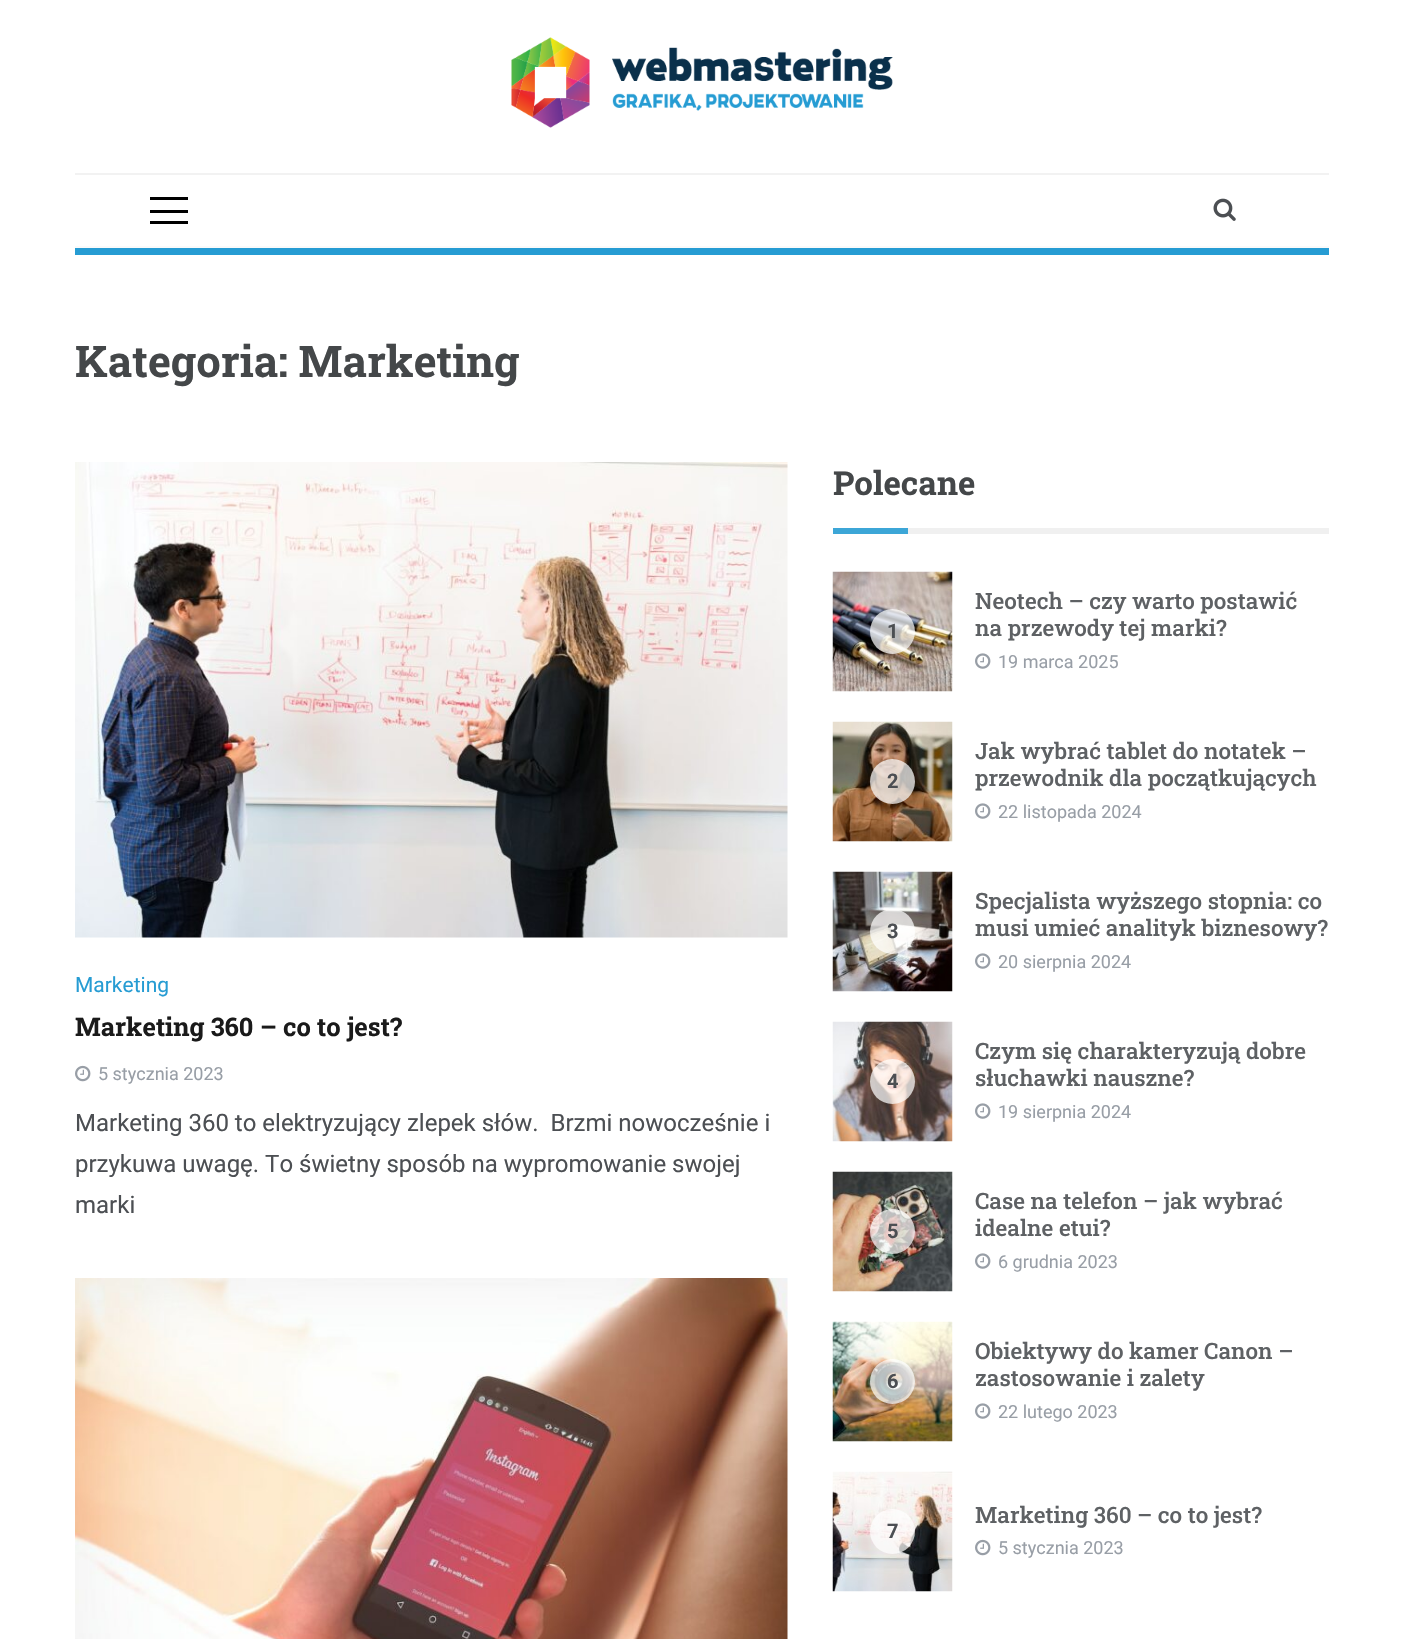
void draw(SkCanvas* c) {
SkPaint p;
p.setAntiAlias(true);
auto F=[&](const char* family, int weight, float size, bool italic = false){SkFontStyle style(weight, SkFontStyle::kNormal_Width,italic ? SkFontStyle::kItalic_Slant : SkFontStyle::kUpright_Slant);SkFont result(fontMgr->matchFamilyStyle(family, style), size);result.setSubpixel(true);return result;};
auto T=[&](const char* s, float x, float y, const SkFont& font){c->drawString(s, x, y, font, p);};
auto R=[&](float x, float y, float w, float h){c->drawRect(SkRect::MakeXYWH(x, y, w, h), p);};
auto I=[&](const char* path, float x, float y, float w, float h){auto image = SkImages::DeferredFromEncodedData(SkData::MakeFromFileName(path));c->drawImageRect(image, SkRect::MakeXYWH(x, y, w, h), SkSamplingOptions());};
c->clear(0xffffffff);
p.setColor(0xff269cd3);
R(75,248,1254,7);
p.setColor(0xfffafafa);
R(75,246,1254,2);
p.setColor(0xfff2f2f2);
R(75,173,1254,2);
I("1.png",511,37,382,91);
p.setColor(0xff000000);
R(150,197,38,3);
R(150,210,38,3);
R(150,221,38,3);
I("2.png",1213,198,23,23);
auto f1 = F("Roboto Slab",700,43.5);
p.setColor(0xff444749);
T("Kategoria: Marketing",75,377,f1);
I("3.png",75,462,713,476);
auto f2 = F("Roboto",400,21);
p.setColor(0xff269cd3);
T("Marketing",75,992,f2);
auto f3 = F("Roboto Slab",700,25.5);
p.setColor(0xff1a1a1a);
T("Marketing 360 – co to jest?",75,1036,f3);
I("4.png",75,1065,16,17);
auto f4 = F("Roboto",400,18);
p.setColor(0xff989ea6);
T("5 stycznia 2023",98,1080,f4);
auto f5 = F("Roboto",400,24);
p.setColor(0xff4c4f53);
T("Marketing 360 to elektryzujący zlepek słów.  Brzmi nowocześnie i",75,1131,f5);
T("przykuwa uwagę. To świetny sposób na wypromowanie swojej",75,1172,f5);
T("marki",75,1213,f5);
I("5.png",75,1278,713,361);
auto f6 = F("Roboto Slab",700,33);
p.setColor(0xff444749);
T("Polecane",833,495,f6);
p.setColor(0xff3ca6d7);
R(833,528,75,6);
p.setColor(0xfff0f0f0);
R(908,528,421,6);
I("6.png",832,571,121,121);
auto f7 = F("Roboto Slab",500,22.5);
p.setColor(0xff5e6164);
T("Neotech – czy warto postawić",975,609,f7);
T("na przewody tej marki?",975,636,f7);
I("7.png",975,653,16,16);
p.setColor(0xff989ea6);
T("19 marca 2025",998,668,f4);
p.setColor(0xb5ffffff);
c->drawCircle(892.5,631.5,22.5,p);
auto f8 = F("Roboto",700,20);
p.setColor(0xff4c4f53);
T("1",887,638,f8);
I("8.png",832,721,121,121);
p.setColor(0xff5e6164);
T("Jak wybrać tablet do notatek –",975,759,f7);
T("przewodnik dla początkujących",975,786,f7);
I("7.png",975,803,16,16);
p.setColor(0xff989ea6);
T("22 listopada 2024",998,818,f4);
p.setColor(0xb5ffffff);
c->drawCircle(892.5,781.5,22.5,p);
p.setColor(0xff4c4f53);
T("2",887,788,f8);
I("9.png",832,871,121,121);
p.setColor(0xff5e6164);
T("Specjalista wyższego stopnia: co",975,909,f7);
T("musi umieć analityk biznesowy?",975,936,f7);
I("7.png",975,953,16,16);
p.setColor(0xff989ea6);
T("20 sierpnia 2024",998,968,f4);
p.setColor(0xb5ffffff);
c->drawCircle(892.5,931.5,22.5,p);
p.setColor(0xff4c4f53);
T("3",887,938,f8);
I("10.png",832,1021,121,121);
p.setColor(0xff5e6164);
T("Czym się charakteryzują dobre",975,1059,f7);
T("słuchawki nauszne?",975,1086,f7);
I("7.png",975,1103,16,16);
p.setColor(0xff989ea6);
T("19 sierpnia 2024",998,1118,f4);
p.setColor(0xb5ffffff);
c->drawCircle(892.5,1081.5,22.5,p);
p.setColor(0xff4c4f53);
T("4",887,1088,f8);
I("11.png",832,1171,121,121);
p.setColor(0xff5e6164);
T("Case na telefon – jak wybrać",975,1209,f7);
T("idealne etui?",975,1236,f7);
I("7.png",975,1253,16,16);
p.setColor(0xff989ea6);
T("6 grudnia 2023",998,1268,f4);
p.setColor(0xb5ffffff);
c->drawCircle(892.5,1231.5,22.5,p);
p.setColor(0xff4c4f53);
T("5",887,1238,f8);
I("12.png",832,1321,121,121);
p.setColor(0xff5e6164);
T("Obiektywy do kamer Canon –",975,1359,f7);
T("zastosowanie i zalety",975,1386,f7);
I("7.png",975,1403,16,16);
p.setColor(0xff989ea6);
T("22 lutego 2023",998,1418,f4);
p.setColor(0xb5ffffff);
c->drawCircle(892.5,1381.5,22.5,p);
p.setColor(0xff4c4f53);
T("6",887,1388,f8);
I("13.png",832,1471,121,121);
p.setColor(0xff5e6164);
T("Marketing 360 – co to jest?",975,1523,f7);
I("4.png",975,1539,16,17);
p.setColor(0xff989ea6);
T("5 stycznia 2023",998,1554,f4);
p.setColor(0xb5ffffff);
c->drawCircle(892.5,1531.5,22.5,p);
p.setColor(0xff4c4f53);
T("7",887,1538,f8);
}
